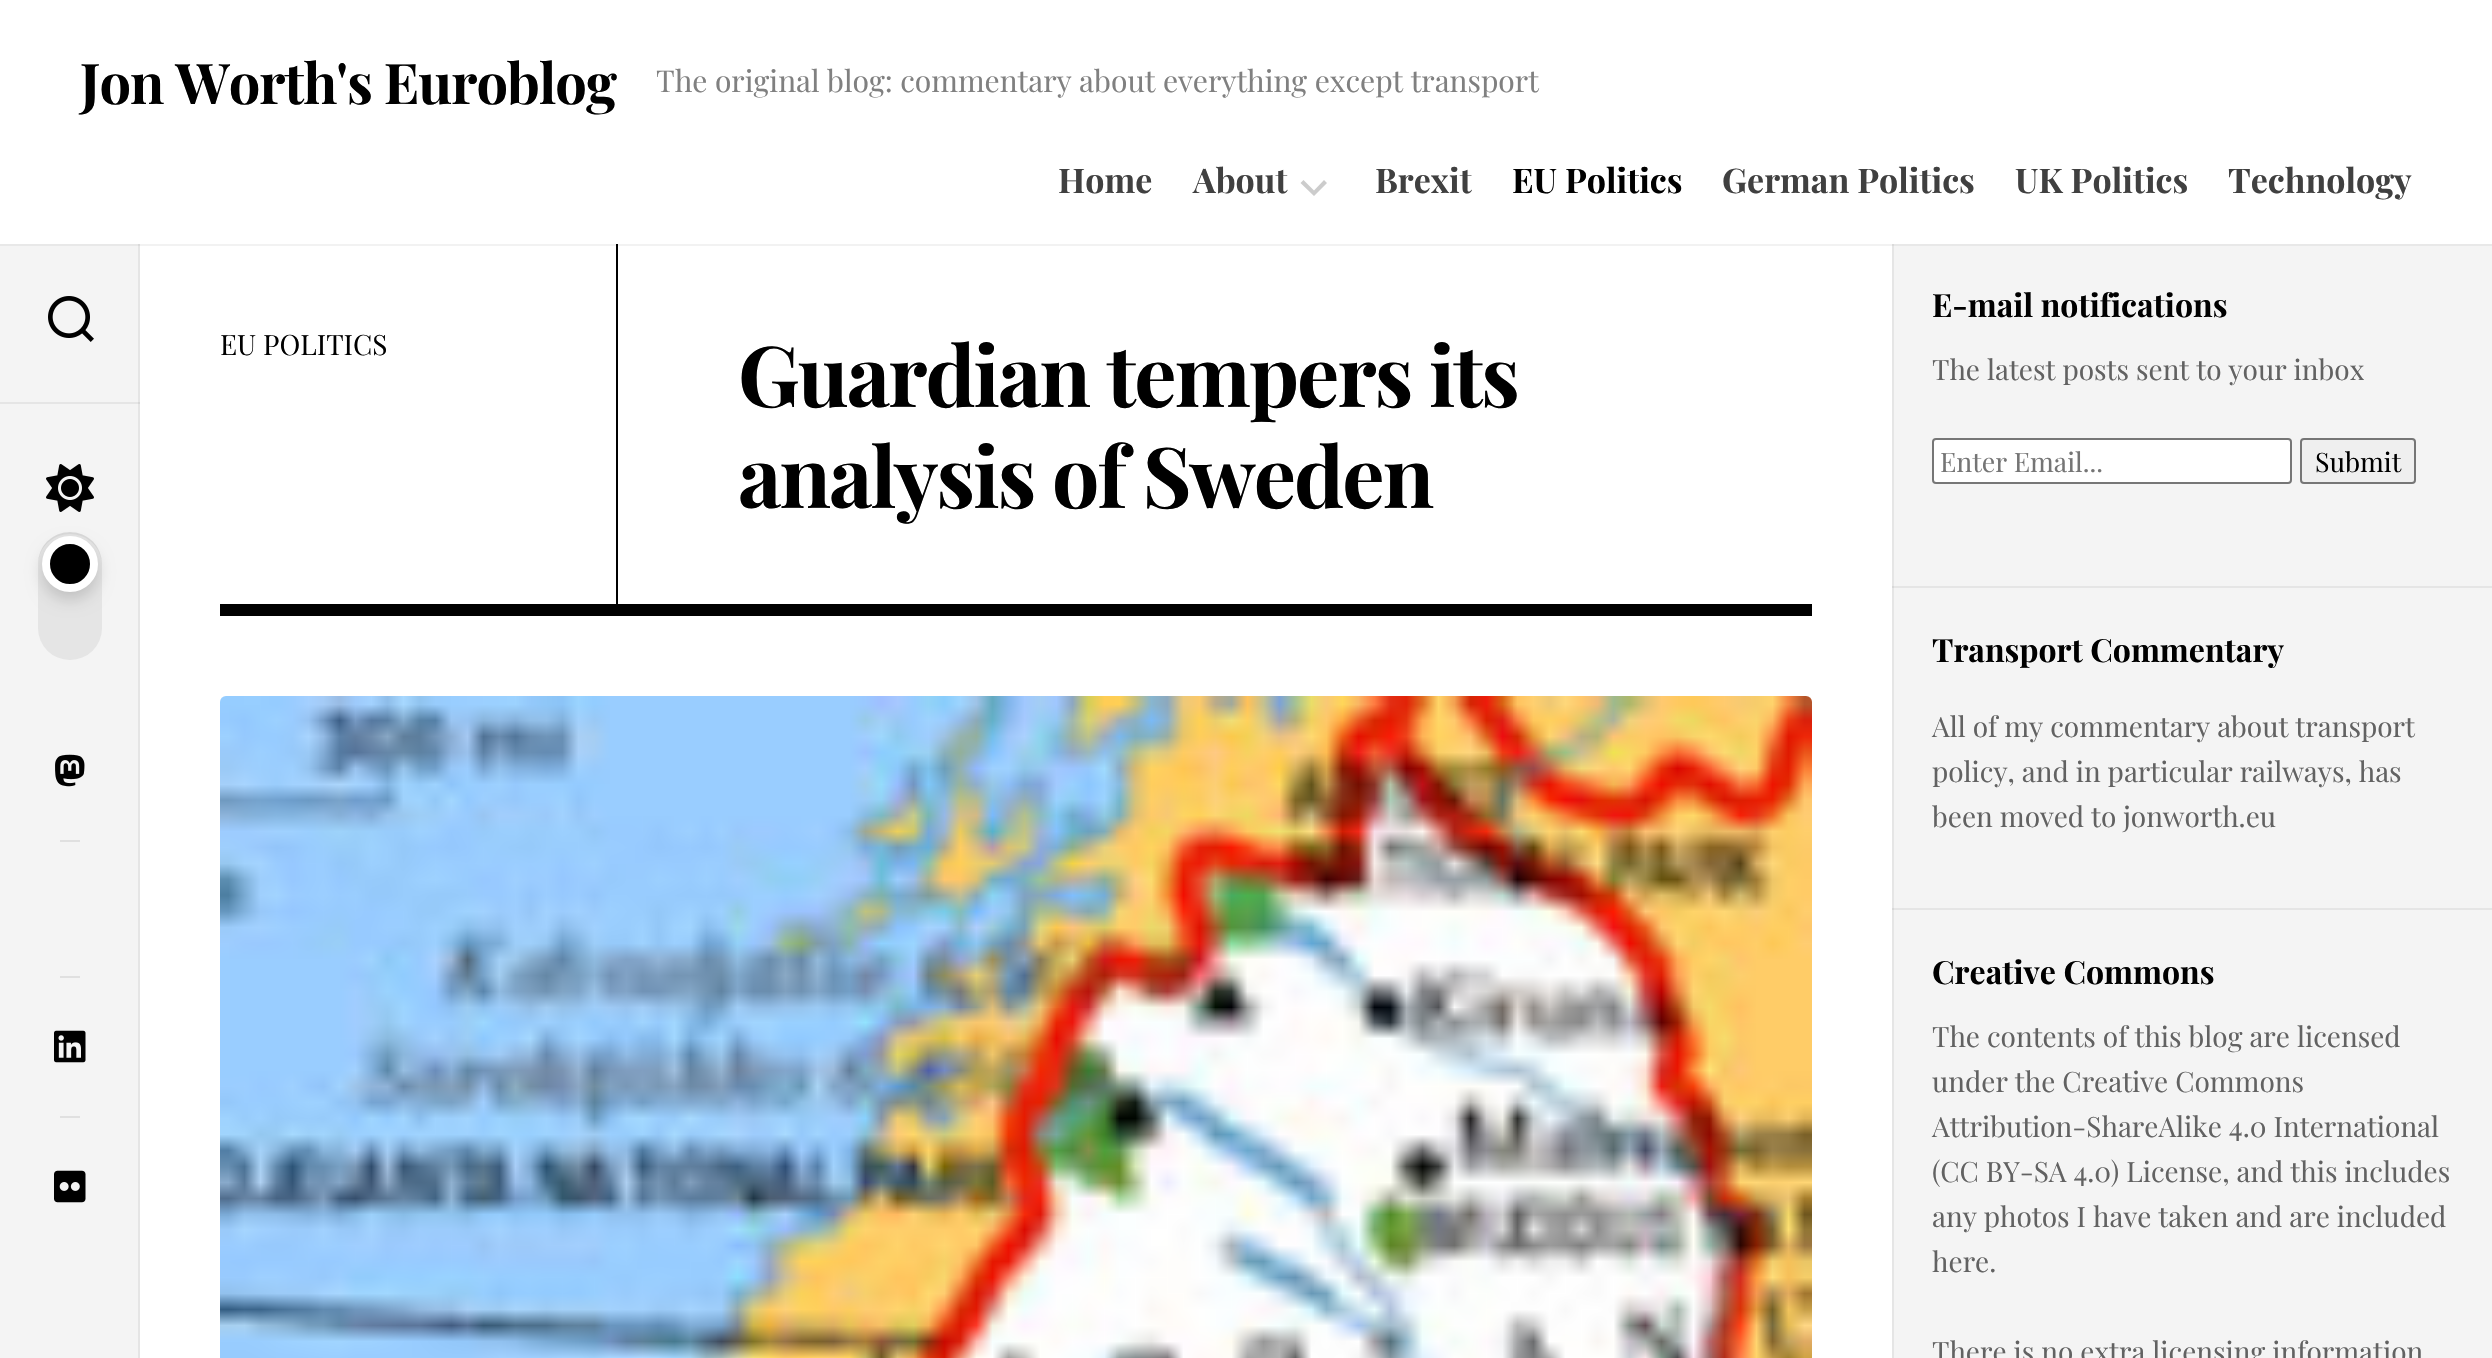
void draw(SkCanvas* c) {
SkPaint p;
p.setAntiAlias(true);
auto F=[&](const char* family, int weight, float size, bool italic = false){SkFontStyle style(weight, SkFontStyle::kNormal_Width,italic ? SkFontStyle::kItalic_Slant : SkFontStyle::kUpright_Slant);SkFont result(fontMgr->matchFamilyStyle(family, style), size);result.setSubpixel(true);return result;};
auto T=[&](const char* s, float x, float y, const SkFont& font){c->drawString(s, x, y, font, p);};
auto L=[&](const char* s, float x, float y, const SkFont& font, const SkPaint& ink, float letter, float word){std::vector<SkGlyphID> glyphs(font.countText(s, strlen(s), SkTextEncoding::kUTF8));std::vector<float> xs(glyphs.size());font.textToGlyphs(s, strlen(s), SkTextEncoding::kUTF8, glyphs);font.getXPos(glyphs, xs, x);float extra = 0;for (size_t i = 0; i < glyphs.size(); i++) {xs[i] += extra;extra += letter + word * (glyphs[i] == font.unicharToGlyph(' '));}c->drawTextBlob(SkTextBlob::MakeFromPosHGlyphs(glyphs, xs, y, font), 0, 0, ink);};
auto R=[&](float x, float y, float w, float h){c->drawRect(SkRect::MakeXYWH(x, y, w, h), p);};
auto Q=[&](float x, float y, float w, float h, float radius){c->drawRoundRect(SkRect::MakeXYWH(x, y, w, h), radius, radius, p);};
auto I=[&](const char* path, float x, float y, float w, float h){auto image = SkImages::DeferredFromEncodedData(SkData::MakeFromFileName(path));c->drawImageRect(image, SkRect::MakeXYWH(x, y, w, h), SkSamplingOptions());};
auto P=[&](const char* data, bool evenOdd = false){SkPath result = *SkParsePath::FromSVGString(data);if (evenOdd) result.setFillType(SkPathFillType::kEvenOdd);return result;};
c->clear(0xffffffff);
p.setColor(0xfff2f2f2);
R(140,244,1752,2);
auto f1 = F("Playfair Display",700,56);
p.setColor(0xff000000);
L("Jon Worth's Euroblog",80,104,f1,p,-1,0);
auto f2 = F("Playfair Display",400,30);
p.setColor(0xff808080);
T("The original blog: commentary about everything except transport",656,92,f2);
auto f3 = F("Playfair Display",700,34);
p.setColor(0xff404040);
T("Home",1058,193,f3);
T("About",1193,193,f3);
p.setColor(0xffcccccc);
c->drawPath(P("M1314 190.5l10-10.5l3 3l-13 13l-13.5-13l3-3z",true),p);
p.setColor(0xff404040);
T("Brexit",1375,193,f3);
p.setColor(0xff000000);
T("EU Politics",1512,193,f3);
p.setColor(0xff404040);
T("German Politics",1722,193,f3);
T("UK Politics",2015,193,f3);
T("Technology",2228,193,f3);
p.setColor(0xfff4f4f4);
R(0,246,138,1112);
p.setColor(0xffe8e8e8);
R(0,244,140,2);
p.setColor(0xffe5e5e5);
R(0,402,140,2);
R(138,244,2,1114);
p.setColor(0xffdadada);
R(138,244,2,2);
p.setColor(0xffd7d7d7);
R(138,402,2,2);
I("1.png",48,296,46,46);
I("2.png",46,464,48,48);
p.setColor(0xffe5e5e5);
Q(38,532,64,128,32);
p.setColor(0x0d000000);
c->drawPath(P("M70 534c18 0 32 14 32 32c0-45-64-45-64 0c0-18 14-32 32-32z"),p);
p.setColor(0x29000000);
p.setMaskFilter(SkMaskFilter::MakeBlur(kNormal_SkBlurStyle, 8));
c->drawRoundRect(SkRect::MakeXYWH(42,544,56,56),28,28,p);
p.setMaskFilter(nullptr);
p.setColor(0xff000000);
c->drawCircle(70,564,24,p);
p.setStroke(true);
p.setStrokeWidth(8);
p.setColor(0xffffffff);
c->drawCircle(70,564,24,p);
I("3.png",55,754,30,33);
p.setStroke(false);
p.setColor(0xffe0e0e0);
R(60,840,20,2);
R(60,976,20,2);
I("4.png",54,1030,32,33);
R(60,1116,20,2);
I("5.png",54,1170,32,33);
p.setColor(0xff000000);
R(220,604,1592,12);
R(616,244,2,360);
auto f4 = F("Playfair Display",400,28);
T("EU POLITICS",220,355,f4);
auto f5 = F("Playfair Display",700,84);
L("Guardian tempers its",738,407,f5,p,-2,0);
L("analysis of Sweden",738,508,f5,p,-2,0);
I("6.png",220,696,1592,662);
p.setColor(0xfff4f4f4);
R(1894,246,598,1112);
p.setColor(0xffe8e8e8);
R(1892,244,600,2);
p.setColor(0xffe5e5e5);
R(1892,908,600,2);
R(1892,586,600,2);
R(1892,244,2,1114);
p.setColor(0xffdadada);
R(1892,244,2,2);
p.setColor(0xffd7d7d7);
R(1892,908,2,2);
R(1892,586,2,2);
auto f6 = F("Playfair Display",700,32);
p.setColor(0xff000000);
T("E-mail notifications",1932,317,f6);
p.setColor(0xff626262);
T("The latest posts sent to your inbox",1932,380,f4);
p.setColor(0xffffffff);
c->drawRoundRect(SkRect::MakeXYWH(1933,439,358,44),3,3,p);
p.setStroke(true);
p.setStrokeWidth(2);
p.setColor(0xff767676);
c->drawRoundRect(SkRect::MakeXYWH(1933,439,358,44),3,3,p);
auto f7 = F("Playfair Display",400,26.75);
p.setStroke(false);
p.setColor(0xff757575);
T("Enter Email...",1940,472,f7);
p.setColor(0xffefefef);
c->drawRoundRect(SkRect::MakeXYWH(2301,439,114,44),3,3,p);
p.setStroke(true);
p.setColor(0xff767676);
c->drawRoundRect(SkRect::MakeXYWH(2301,439,114,44),3,3,p);
p.setStroke(false);
p.setColor(0xff000000);
T("Submit",2315,472,f7);
T("Transport Commentary",1932,662,f6);
p.setColor(0xff626262);
T("All of my commentary about transport",1932,737,f4);
T("policy, and in particular railways, has",1932,782,f4);
T("been moved to jonworth.eu",1932,827,f4);
p.setColor(0xff000000);
T("Creative Commons",1932,984,f6);
p.setColor(0xff626262);
T("The contents of this blog are licensed",1932,1047,f4);
T("under the Creative Commons",1932,1092,f4);
T("Attribution-ShareAlike 4.0 International",1932,1137,f4);
T("(CC BY-SA 4.0) License, and this includes",1932,1182,f4);
T("any photos I have taken and are included",1932,1227,f4);
T("here.",1932,1272,f4);
T("There is no extra licensing information",1932,1362,f4);
}
